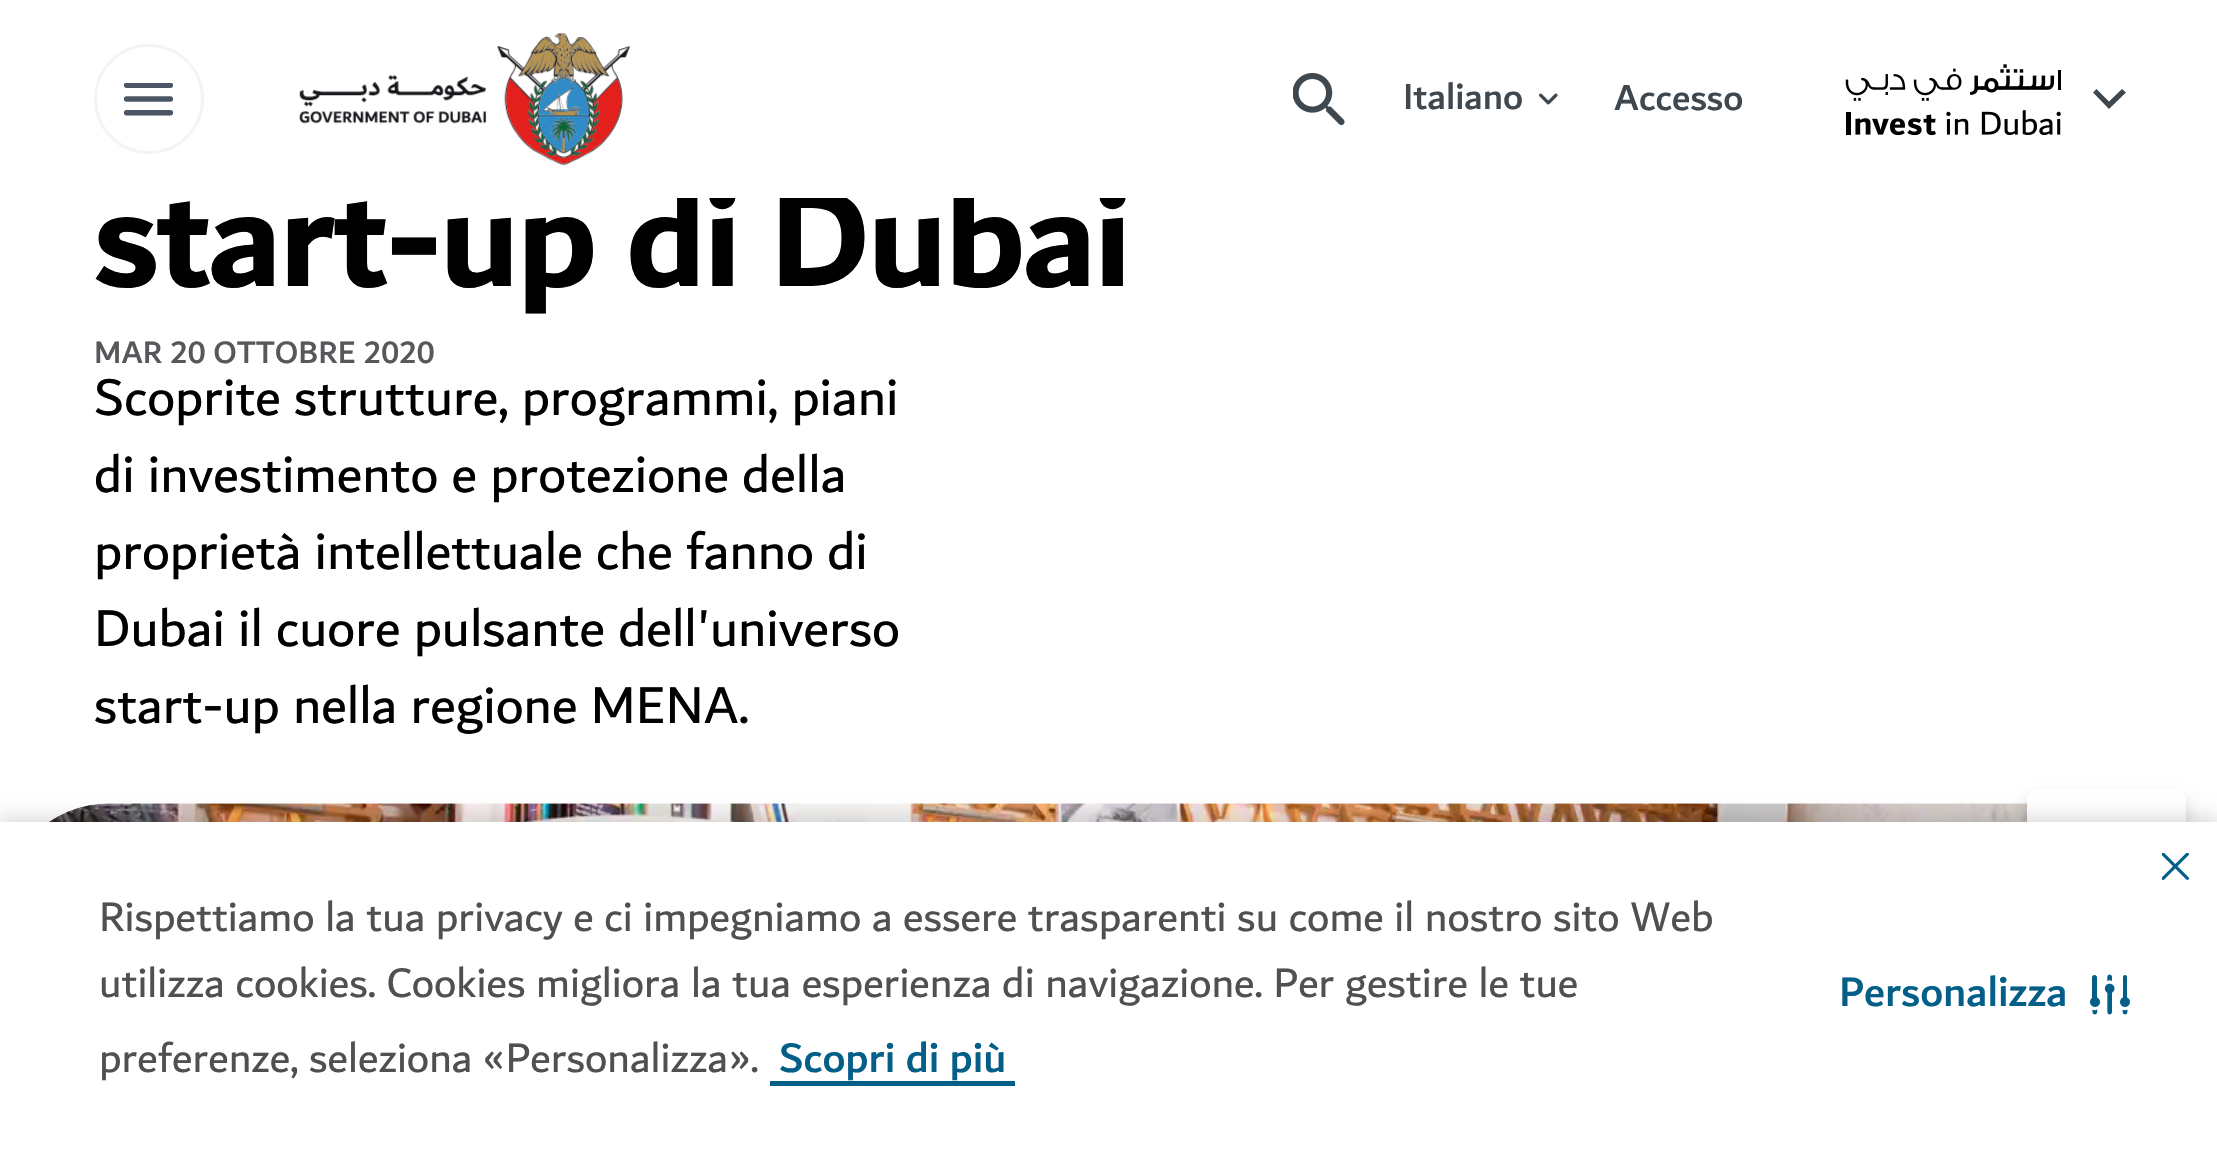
void draw(SkCanvas* c) {
SkPaint p;
p.setAntiAlias(true);
auto F=[&](const char* family, int weight, float size, bool italic = false){SkFontStyle style(weight, SkFontStyle::kNormal_Width,italic ? SkFontStyle::kItalic_Slant : SkFontStyle::kUpright_Slant);SkFont result(fontMgr->matchFamilyStyle(family, style), size);result.setSubpixel(true);return result;};
auto T=[&](const char* s, float x, float y, const SkFont& font){c->drawString(s, x, y, font, p);};
auto L=[&](const char* s, float x, float y, const SkFont& font, const SkPaint& ink, float letter, float word){std::vector<SkGlyphID> glyphs(font.countText(s, strlen(s), SkTextEncoding::kUTF8));std::vector<float> xs(glyphs.size());font.textToGlyphs(s, strlen(s), SkTextEncoding::kUTF8, glyphs);font.getXPos(glyphs, xs, x);float extra = 0;for (size_t i = 0; i < glyphs.size(); i++) {xs[i] += extra;extra += letter + word * (glyphs[i] == font.unicharToGlyph(' '));}c->drawTextBlob(SkTextBlob::MakeFromPosHGlyphs(glyphs, xs, y, font), 0, 0, ink);};
auto R=[&](float x, float y, float w, float h){c->drawRect(SkRect::MakeXYWH(x, y, w, h), p);};
auto Q=[&](float x, float y, float w, float h, float radius){c->drawRoundRect(SkRect::MakeXYWH(x, y, w, h), radius, radius, p);};
auto I=[&](const char* path, float x, float y, float w, float h){auto image = SkImages::DeferredFromEncodedData(SkData::MakeFromFileName(path));c->drawImageRect(image, SkRect::MakeXYWH(x, y, w, h), SkSamplingOptions());};
auto P=[&](const char* data, bool evenOdd = false){SkPath result = *SkParsePath::FromSVGString(data);if (evenOdd) result.setFillType(SkPathFillType::kEvenOdd);return result;};
c->clear(0xffffffff);
auto f1 = F("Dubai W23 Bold",700,148.5);
p.setColor(0xff000000);
L("start-up di Dubai",94,286,f1,p,-2.75,0);
p.setColor(0xffffffff);
R(676,181,450,17);
p.setStroke(true);
p.setStrokeWidth(3);
p.setColor(0xfff3f4f6);
c->drawCircle(149,99,53.5,p);
I("1.png",124,83,49,33);
I("2.png",299,33,331,133);
I("3.png",1293,72,52,53);
auto f2 = F("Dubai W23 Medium",500,38.5);
p.setStroke(false);
p.setColor(0xff40484f);
T("Italiano",1403,109,f2);
I("4.png",1539,93,19,12);
T("Accesso",1614,110,f2);
I("5.png",1845,64,216,72);
c->drawPath(P("M2096.5 89l12.5 12.5l13-12.5l4 3.5l-17 16.5l-16-16.5z"),p);
auto f3 = F("Dubai W23 Medium",500,33);
p.setColor(0xff57585c);
T("MAR 20 OTTOBRE 2020",94,363,f3);
auto f4 = F("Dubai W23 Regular",400,55);
p.setColor(0xff000000);
T("Scoprite strutture, programmi, piani",94,415,f4);
T("di investimento e protezione della",94,492,f4);
T("proprietà intellettuale che fanno di",94,569,f4);
T("Dubai il cuore pulsante dell'universo",94,646,f4);
T("start-up nella regione MENA.",94,723,f4);
I("6.png",49,803,1978,19);
p.setColor(0x29000000);
p.setMaskFilter(SkMaskFilter::MakeBlur(kNormal_SkBlurStyle, 8));
c->drawRoundRect(SkRect::MakeXYWH(2027,798,159,159),11,11,p);
p.setMaskFilter(nullptr);
p.setColor(0xffffffff);
Q(2027,789,159,160,11);
p.setColor(0x1c000000);
p.setMaskFilter(SkMaskFilter::MakeBlur(kNormal_SkBlurStyle, 7));
c->drawRect(SkRect::MakeXYWH(0,814,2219,347),p);
p.setMaskFilter(nullptr);
p.setColor(0xffffffff);
R(0,822,2217,346);
auto f5 = F("Dubai W23 Regular",400,44);
p.setColor(0xff505050);
T("Rispettiamo la tua privacy e ci impegniamo a essere trasparenti su come il nostro sito Web",99,931,f5);
T("utilizza cookies. Cookies migliora la tua esperienza di navigazione. Per gestire le tue",99,997,f5);
T("preferenze, seleziona «Personalizza».",99,1072,f5);
{
const SkColor colors[] = {0xffffffff,0xffffffff,0xff035e88,0xff035e88,0xffffffff};
const float stops[] = {0,.2,.2,.27,.27};
const SkPoint ends[] = {{892,1103}, {892,1020}};
p.setShader(SkGradientShader::MakeLinear(ends, colors, stops, 5, SkTileMode::kClamp));
p.setAlpha(255);
}
R(770,1081,245,5);
auto f6 = F("Dubai W23 Medium",500,44);
p.setShader(nullptr);
p.setColor(0xff035e88);
T("Scopri di più",779,1072,f6);
I("7.png",2162,853,27,27);
T("Personalizza",1839,1006,f6);
I("8.png",2090,974,40,41);
}
